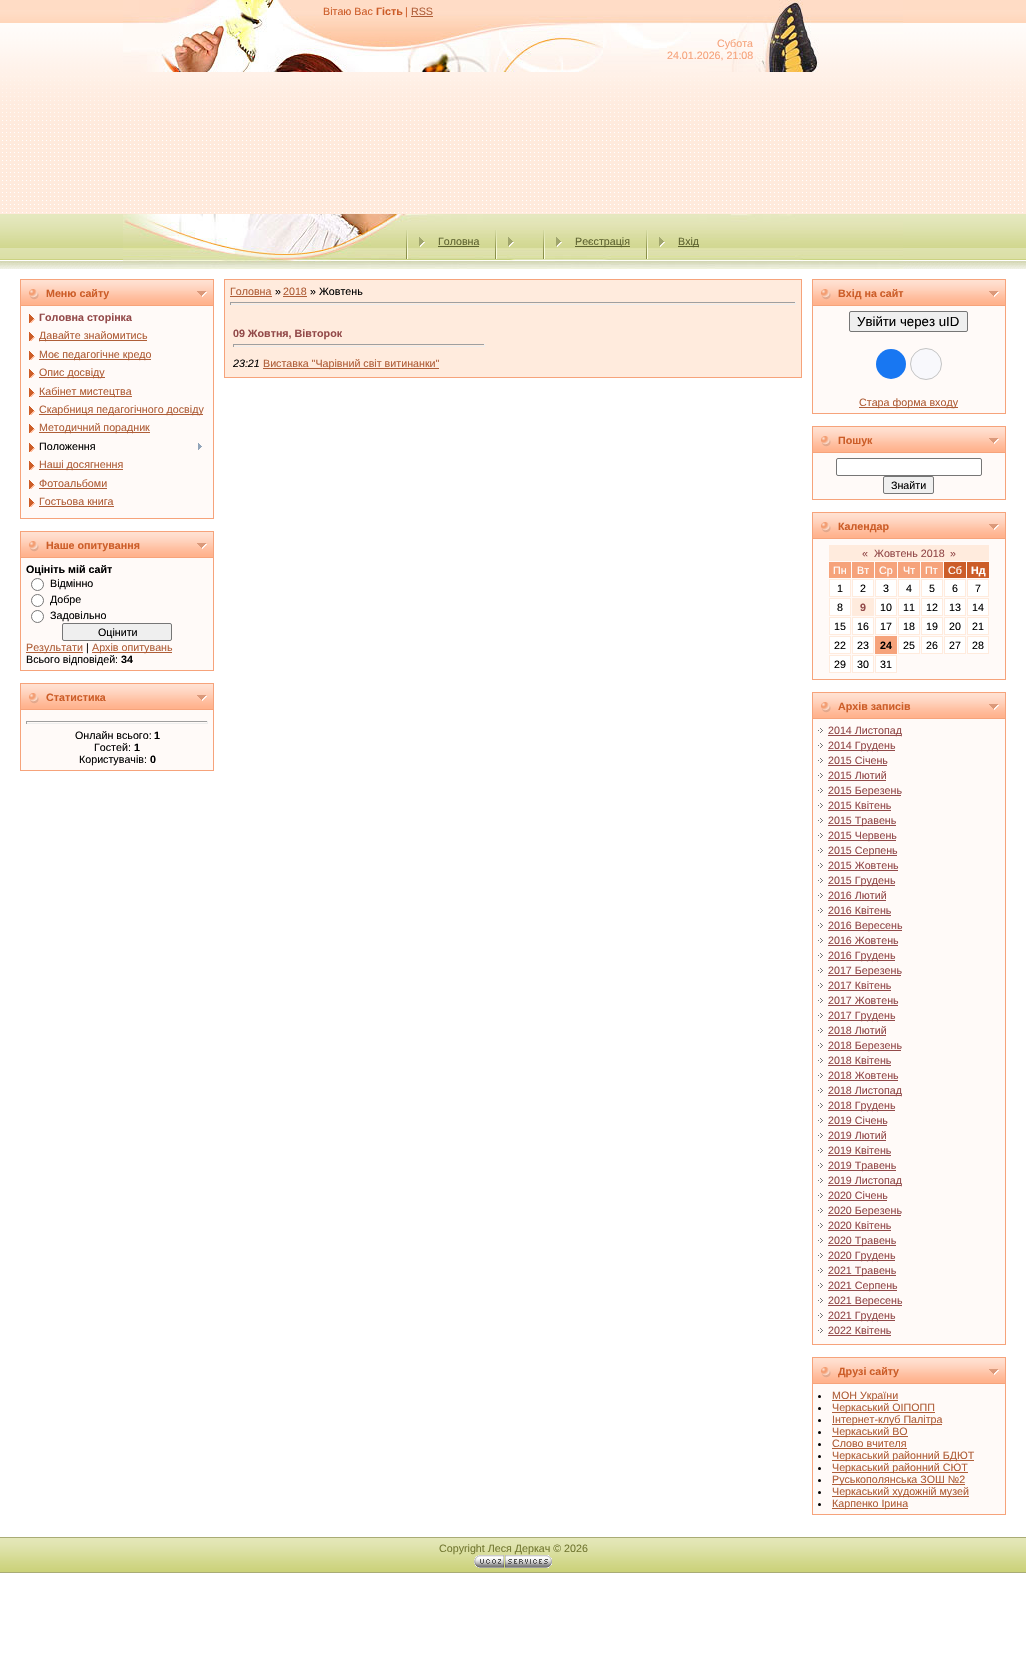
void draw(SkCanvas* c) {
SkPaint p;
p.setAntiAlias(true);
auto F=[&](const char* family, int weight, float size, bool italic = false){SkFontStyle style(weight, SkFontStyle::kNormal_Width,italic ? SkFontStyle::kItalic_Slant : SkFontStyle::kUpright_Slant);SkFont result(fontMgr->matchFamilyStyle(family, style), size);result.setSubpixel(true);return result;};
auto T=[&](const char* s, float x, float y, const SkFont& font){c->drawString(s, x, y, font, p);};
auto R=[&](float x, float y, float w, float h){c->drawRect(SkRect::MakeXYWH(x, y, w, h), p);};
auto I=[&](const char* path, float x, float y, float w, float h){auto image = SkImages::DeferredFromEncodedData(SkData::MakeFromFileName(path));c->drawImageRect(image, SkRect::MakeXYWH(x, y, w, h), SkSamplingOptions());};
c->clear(0xffffffff);
I("1.png",0,0,1026,269);
I("2.png",123,0,780,34);
auto f1 = F("Liberation Sans",400,10.7);
p.setColor(0xffcc5d28);
T("Вітаю Вас",323,15,f1);
auto f2 = F("Liberation Sans",700,10.7);
T("Гість",376,15,f2);
T("|",405,15,f1);
p.setColor(0xffaf5e38);
T("RSS",411,15,f1);
R(411,16,22,1);
I("3.png",123,34,696,38);
p.setColor(0xfff6a37b);
T("Субота",717,47,f1);
T("24.01.2026, 21:08",667,59,f1);
I("4.png",123,214,780,55);
I("5.png",406,230,19,29);
p.setColor(0xff5f6431);
T("Головна",438,245,f1);
R(438,246,41,1);
I("6.png",495,230,19,29);
I("7.png",543,230,19,29);
R(575,246,55,1);
T("Реєстрація",575,245,f1);
I("8.png",646,230,19,29);
R(678,246,21,1);
T("Вхід",678,245,f1);
p.setColor(0xfff6a37b);
R(20,279,194,240);
I("9.png",21,280,192,25);
p.setColor(0xffcc5d28);
T("Меню сайту",46,297,f2);
p.setColor(0xfffffaf8);
R(21,306,192,212);
I("10.png",29,314,6,9);
p.setColor(0xff934a4a);
T("Головна сторінка",39,321,f2);
I("10.png",29,332,6,9);
p.setColor(0xffaf5e38);
R(39,340,108,1);
T("Давайте знайомитись",39,339,f1);
I("10.png",29,351,6,9);
R(39,359,112,1);
T("Моє педагогічне кредо",39,358,f1);
I("10.png",29,369,6,9);
R(39,377,66,1);
T("Опис досвіду",39,376,f1);
I("10.png",29,388,6,9);
R(39,396,93,1);
T("Кабінет мистецтва",39,395,f1);
I("10.png",29,406,6,9);
R(39,414,164,1);
T("Скарбниця педагогічного досвіду",39,413,f1);
I("10.png",29,424,6,9);
R(39,432,111,1);
T("Методичний порадник",39,431,f1);
I("10.png",29,443,6,9);
p.setColor(0xff000000);
T("Положення",39,450,f1);
I("11.png",198,443,4,7);
I("10.png",29,461,6,9);
p.setColor(0xffaf5e38);
R(39,469,84,1);
T("Наші досягнення",39,468,f1);
I("10.png",29,480,6,9);
T("Фотоальбоми",39,487,f1);
R(39,488,68,1);
I("10.png",29,498,6,9);
T("Гостьова книга",39,505,f1);
R(39,506,75,1);
p.setColor(0xfff6a37b);
R(20,531,194,140);
I("9.png",21,532,192,25);
p.setColor(0xffcc5d28);
T("Наше опитування",46,549,f2);
p.setColor(0xfffffaf8);
R(21,558,192,112);
p.setColor(0xff000000);
T("Оцініть мій сайт",26,573,f2);
p.setColor(0xffffffff);
c->drawCircle(37.5,584.5,6,p);
p.setStroke(true);
p.setStrokeWidth(1);
p.setColor(0xff767676);
c->drawCircle(37.5,584.5,6,p);
p.setStroke(false);
p.setColor(0xff000000);
T("Відмінно",50,587,f1);
p.setColor(0xffffffff);
c->drawCircle(37.5,600.5,6,p);
p.setStroke(true);
p.setColor(0xff767676);
c->drawCircle(37.5,600.5,6,p);
p.setStroke(false);
p.setColor(0xff000000);
T("Добре",50,603,f1);
p.setColor(0xffffffff);
c->drawCircle(37.5,616.5,6,p);
p.setStroke(true);
p.setColor(0xff767676);
c->drawCircle(37.5,616.5,6,p);
p.setStroke(false);
p.setColor(0xff000000);
T("Задовільно",50,619,f1);
p.setColor(0xffefefef);
c->drawRoundRect(SkRect::MakeXYWH(62.5,623.5,109,17),1.5,1.5,p);
p.setStroke(true);
p.setColor(0xff767676);
c->drawRoundRect(SkRect::MakeXYWH(62.5,623.5,109,17),1.5,1.5,p);
p.setStroke(false);
p.setColor(0xff000000);
T("Оцінити",98,636,f1);
p.setColor(0xffaf5e38);
R(26,652,57,1);
T("Результати",26,651,f1);
p.setColor(0xff000000);
T("|",86,651,f1);
p.setColor(0xffaf5e38);
R(92,652,80,1);
T("Архів опитувань",92,651,f1);
p.setColor(0xff000000);
T("Всього відповідей:",26,663,f1);
T("34",121,663,f2);
p.setColor(0xfff6a37b);
R(20,683,194,88);
I("9.png",21,684,192,25);
p.setColor(0xffcc5d28);
T("Статистика",46,701,f2);
p.setColor(0xfffffaf8);
R(21,710,192,60);
p.setColor(0xff9f9f9f);
R(26,721,182,1);
p.setColor(0xffeeeeee);
R(207,721,1,3);
R(26,723,182,1);
p.setColor(0xff9f9f9f);
R(26,721,1,3);
p.setColor(0xff000000);
T("Онлайн всього:",75,739,f1);
T("1",154,739,f2);
T("Гостей:",94,751,f1);
T("1",134,751,f2);
T("Користувачів:",79,763,f1);
T("0",150,763,f2);
p.setColor(0xffffebdd);
c->drawRect(SkRect::MakeXYWH(224.5,279.5,577,98),p);
p.setStroke(true);
p.setColor(0xfff6a37b);
c->drawRect(SkRect::MakeXYWH(224.5,279.5,577,98),p);
p.setStroke(false);
p.setColor(0xffaf5e38);
T("Головна",230,295,f1);
R(230,296,42,1);
p.setColor(0xff000000);
T("»",275,295,f1);
p.setColor(0xffaf5e38);
T("2018",283,295,f1);
R(283,296,24,1);
p.setColor(0xff000000);
T("» Жовтень",310,295,f1);
p.setColor(0xff9f9f9f);
R(230,302,566,1);
p.setColor(0xffeeeeee);
R(795,302,1,3);
R(230,304,566,1);
p.setColor(0xff9f9f9f);
R(230,302,1,3);
p.setColor(0xff934a4a);
T("09 Жовтня, Вівторок",233,337,f2);
p.setColor(0xff9f9f9f);
R(233,344,252,1);
p.setColor(0xffeeeeee);
R(484,344,1,3);
R(233,346,252,1);
p.setColor(0xff9f9f9f);
R(233,344,1,3);
auto f3 = F("Liberation Sans",400,10.7,true);
p.setColor(0xff000000);
T("23:21",233,367,f3);
p.setColor(0xffaf5e38);
R(263,368,176,1);
T("Виставка \"Чарівний світ витинанки\"",263,367,f1);
p.setColor(0xfff6a37b);
R(812,279,194,135);
I("9.png",813,280,192,25);
p.setColor(0xffcc5d28);
T("Вхід на сайт",838,297,f2);
p.setColor(0xfffffaf8);
R(813,306,192,107);
p.setColor(0xffefefef);
c->drawRoundRect(SkRect::MakeXYWH(849.5,311.5,118,20),1.5,1.5,p);
p.setStroke(true);
p.setColor(0xff767676);
c->drawRoundRect(SkRect::MakeXYWH(849.5,311.5,118,20),1.5,1.5,p);
auto f4 = F("Liberation Sans",400,13.25);
p.setStroke(false);
p.setColor(0xff000000);
T("Увійти через uID",857,326,f4);
p.setColor(0xff1877f2);
c->drawCircle(891,364,15,p);
p.setColor(0xfff8f8fc);
c->drawCircle(926,364,15.5,p);
p.setStroke(true);
p.setColor(0xffc4c4c4);
c->drawCircle(926,364,15.5,p);
p.setStroke(false);
p.setColor(0xffaf5e38);
R(859,407,99,1);
T("Стара форма входу",859,406,f1);
p.setColor(0xfff6a37b);
R(812,426,194,74);
I("9.png",813,427,192,25);
p.setColor(0xffcc5d28);
T("Пошук",838,444,f2);
p.setColor(0xfffffaf8);
R(813,453,192,46);
p.setColor(0xffffffff);
c->drawRoundRect(SkRect::MakeXYWH(836.5,458.5,145,17),1.5,1.5,p);
p.setStroke(true);
p.setColor(0xff767676);
c->drawRoundRect(SkRect::MakeXYWH(836.5,458.5,145,17),1.5,1.5,p);
p.setStroke(false);
p.setColor(0xffefefef);
c->drawRoundRect(SkRect::MakeXYWH(883.5,476.5,50,17),1.5,1.5,p);
p.setStroke(true);
p.setColor(0xff767676);
c->drawRoundRect(SkRect::MakeXYWH(883.5,476.5,50,17),1.5,1.5,p);
p.setStroke(false);
p.setColor(0xff000000);
T("Знайти",891,489,f1);
p.setColor(0xfff6a37b);
R(812,512,194,168);
I("9.png",813,513,192,25);
p.setColor(0xffcc5d28);
T("Календар",838,530,f2);
p.setColor(0xfffffaf8);
R(813,539,192,140);
p.setColor(0xffffebdd);
R(829,545,160,16);
p.setColor(0xff934a4a);
T("«",862,557,f1);
T("Жовтень 2018",874,557,f1);
T("»",950,557,f1);
p.setColor(0xfff6a37b);
R(829,562,22,16);
p.setColor(0xffffffff);
T("Пн",833,574,f1);
p.setColor(0xfff6a37b);
R(852,562,22,16);
p.setColor(0xffffffff);
T("Вт",857,574,f1);
p.setColor(0xfff6a37b);
R(875,562,22,16);
p.setColor(0xffffffff);
T("Ср",879,574,f1);
p.setColor(0xfff6a37b);
R(898,562,22,16);
p.setColor(0xffffffff);
T("Чт",903,574,f1);
p.setColor(0xfff6a37b);
R(921,562,22,16);
p.setColor(0xffffffff);
T("Пт",925,574,f1);
p.setColor(0xffcc5d28);
R(944,562,22,16);
p.setColor(0xffffffff);
T("Сб",948,574,f1);
p.setColor(0xffcc5d28);
R(967,562,22,16);
p.setColor(0xffffffff);
T("Нд",971,574,f2);
c->drawRect(SkRect::MakeXYWH(829.5,579.5,21,17),p);
p.setStroke(true);
p.setColor(0xffffebdd);
c->drawRect(SkRect::MakeXYWH(829.5,579.5,21,17),p);
p.setStroke(false);
p.setColor(0xff000000);
T("1",837,592,f1);
p.setColor(0xffffffff);
c->drawRect(SkRect::MakeXYWH(852.5,579.5,21,17),p);
p.setStroke(true);
p.setColor(0xffffebdd);
c->drawRect(SkRect::MakeXYWH(852.5,579.5,21,17),p);
p.setStroke(false);
p.setColor(0xff000000);
T("2",860,592,f1);
p.setColor(0xffffffff);
c->drawRect(SkRect::MakeXYWH(875.5,579.5,21,17),p);
p.setStroke(true);
p.setColor(0xffffebdd);
c->drawRect(SkRect::MakeXYWH(875.5,579.5,21,17),p);
p.setStroke(false);
p.setColor(0xff000000);
T("3",883,592,f1);
p.setColor(0xffffffff);
c->drawRect(SkRect::MakeXYWH(898.5,579.5,21,17),p);
p.setStroke(true);
p.setColor(0xffffebdd);
c->drawRect(SkRect::MakeXYWH(898.5,579.5,21,17),p);
p.setStroke(false);
p.setColor(0xff000000);
T("4",906,592,f1);
p.setColor(0xffffffff);
c->drawRect(SkRect::MakeXYWH(921.5,579.5,21,17),p);
p.setStroke(true);
p.setColor(0xffffebdd);
c->drawRect(SkRect::MakeXYWH(921.5,579.5,21,17),p);
p.setStroke(false);
p.setColor(0xff000000);
T("5",929,592,f1);
p.setColor(0xffffffff);
c->drawRect(SkRect::MakeXYWH(944.5,579.5,21,17),p);
p.setStroke(true);
p.setColor(0xffffebdd);
c->drawRect(SkRect::MakeXYWH(944.5,579.5,21,17),p);
p.setStroke(false);
p.setColor(0xff000000);
T("6",952,592,f1);
p.setColor(0xffffffff);
c->drawRect(SkRect::MakeXYWH(967.5,579.5,21,17),p);
p.setStroke(true);
p.setColor(0xffffebdd);
c->drawRect(SkRect::MakeXYWH(967.5,579.5,21,17),p);
p.setStroke(false);
p.setColor(0xff000000);
T("7",975,592,f1);
p.setColor(0xffffffff);
c->drawRect(SkRect::MakeXYWH(829.5,598.5,21,17),p);
p.setStroke(true);
p.setColor(0xffffebdd);
c->drawRect(SkRect::MakeXYWH(829.5,598.5,21,17),p);
p.setStroke(false);
p.setColor(0xff000000);
T("8",837,611,f1);
p.setColor(0xffffebdd);
R(852,598,22,18);
p.setColor(0xff934a4a);
T("9",860,611,f2);
p.setColor(0xffffffff);
c->drawRect(SkRect::MakeXYWH(875.5,598.5,21,17),p);
p.setStroke(true);
p.setColor(0xffffebdd);
c->drawRect(SkRect::MakeXYWH(875.5,598.5,21,17),p);
p.setStroke(false);
p.setColor(0xff000000);
T("10",880,611,f1);
p.setColor(0xffffffff);
c->drawRect(SkRect::MakeXYWH(898.5,598.5,21,17),p);
p.setStroke(true);
p.setColor(0xffffebdd);
c->drawRect(SkRect::MakeXYWH(898.5,598.5,21,17),p);
p.setStroke(false);
p.setColor(0xff000000);
T("11",903,611,f1);
p.setColor(0xffffffff);
c->drawRect(SkRect::MakeXYWH(921.5,598.5,21,17),p);
p.setStroke(true);
p.setColor(0xffffebdd);
c->drawRect(SkRect::MakeXYWH(921.5,598.5,21,17),p);
p.setStroke(false);
p.setColor(0xff000000);
T("12",926,611,f1);
p.setColor(0xffffffff);
c->drawRect(SkRect::MakeXYWH(944.5,598.5,21,17),p);
p.setStroke(true);
p.setColor(0xffffebdd);
c->drawRect(SkRect::MakeXYWH(944.5,598.5,21,17),p);
p.setStroke(false);
p.setColor(0xff000000);
T("13",949,611,f1);
p.setColor(0xffffffff);
c->drawRect(SkRect::MakeXYWH(967.5,598.5,21,17),p);
p.setStroke(true);
p.setColor(0xffffebdd);
c->drawRect(SkRect::MakeXYWH(967.5,598.5,21,17),p);
p.setStroke(false);
p.setColor(0xff000000);
T("14",972,611,f1);
p.setColor(0xffffffff);
c->drawRect(SkRect::MakeXYWH(829.5,617.5,21,17),p);
p.setStroke(true);
p.setColor(0xffffebdd);
c->drawRect(SkRect::MakeXYWH(829.5,617.5,21,17),p);
p.setStroke(false);
p.setColor(0xff000000);
T("15",834,630,f1);
p.setColor(0xffffffff);
c->drawRect(SkRect::MakeXYWH(852.5,617.5,21,17),p);
p.setStroke(true);
p.setColor(0xffffebdd);
c->drawRect(SkRect::MakeXYWH(852.5,617.5,21,17),p);
p.setStroke(false);
p.setColor(0xff000000);
T("16",857,630,f1);
p.setColor(0xffffffff);
c->drawRect(SkRect::MakeXYWH(875.5,617.5,21,17),p);
p.setStroke(true);
p.setColor(0xffffebdd);
c->drawRect(SkRect::MakeXYWH(875.5,617.5,21,17),p);
p.setStroke(false);
p.setColor(0xff000000);
T("17",880,630,f1);
p.setColor(0xffffffff);
c->drawRect(SkRect::MakeXYWH(898.5,617.5,21,17),p);
p.setStroke(true);
p.setColor(0xffffebdd);
c->drawRect(SkRect::MakeXYWH(898.5,617.5,21,17),p);
p.setStroke(false);
p.setColor(0xff000000);
T("18",903,630,f1);
p.setColor(0xffffffff);
c->drawRect(SkRect::MakeXYWH(921.5,617.5,21,17),p);
p.setStroke(true);
p.setColor(0xffffebdd);
c->drawRect(SkRect::MakeXYWH(921.5,617.5,21,17),p);
p.setStroke(false);
p.setColor(0xff000000);
T("19",926,630,f1);
p.setColor(0xffffffff);
c->drawRect(SkRect::MakeXYWH(944.5,617.5,21,17),p);
p.setStroke(true);
p.setColor(0xffffebdd);
c->drawRect(SkRect::MakeXYWH(944.5,617.5,21,17),p);
p.setStroke(false);
p.setColor(0xff000000);
T("20",949,630,f1);
p.setColor(0xffffffff);
c->drawRect(SkRect::MakeXYWH(967.5,617.5,21,17),p);
p.setStroke(true);
p.setColor(0xffffebdd);
c->drawRect(SkRect::MakeXYWH(967.5,617.5,21,17),p);
p.setStroke(false);
p.setColor(0xff000000);
T("21",972,630,f1);
p.setColor(0xffffffff);
c->drawRect(SkRect::MakeXYWH(829.5,636.5,21,17),p);
p.setStroke(true);
p.setColor(0xffffebdd);
c->drawRect(SkRect::MakeXYWH(829.5,636.5,21,17),p);
p.setStroke(false);
p.setColor(0xff000000);
T("22",834,649,f1);
p.setColor(0xffffffff);
c->drawRect(SkRect::MakeXYWH(852.5,636.5,21,17),p);
p.setStroke(true);
p.setColor(0xffffebdd);
c->drawRect(SkRect::MakeXYWH(852.5,636.5,21,17),p);
p.setStroke(false);
p.setColor(0xff000000);
T("23",857,649,f1);
p.setColor(0xfff6a37b);
R(875,636,22,18);
p.setColor(0xff000000);
T("24",880,649,f2);
p.setColor(0xffffffff);
c->drawRect(SkRect::MakeXYWH(898.5,636.5,21,17),p);
p.setStroke(true);
p.setColor(0xffffebdd);
c->drawRect(SkRect::MakeXYWH(898.5,636.5,21,17),p);
p.setStroke(false);
p.setColor(0xff000000);
T("25",903,649,f1);
p.setColor(0xffffffff);
c->drawRect(SkRect::MakeXYWH(921.5,636.5,21,17),p);
p.setStroke(true);
p.setColor(0xffffebdd);
c->drawRect(SkRect::MakeXYWH(921.5,636.5,21,17),p);
p.setStroke(false);
p.setColor(0xff000000);
T("26",926,649,f1);
p.setColor(0xffffffff);
c->drawRect(SkRect::MakeXYWH(944.5,636.5,21,17),p);
p.setStroke(true);
p.setColor(0xffffebdd);
c->drawRect(SkRect::MakeXYWH(944.5,636.5,21,17),p);
p.setStroke(false);
p.setColor(0xff000000);
T("27",949,649,f1);
p.setColor(0xffffffff);
c->drawRect(SkRect::MakeXYWH(967.5,636.5,21,17),p);
p.setStroke(true);
p.setColor(0xffffebdd);
c->drawRect(SkRect::MakeXYWH(967.5,636.5,21,17),p);
p.setStroke(false);
p.setColor(0xff000000);
T("28",972,649,f1);
p.setColor(0xffffffff);
c->drawRect(SkRect::MakeXYWH(829.5,655.5,21,17),p);
p.setStroke(true);
p.setColor(0xffffebdd);
c->drawRect(SkRect::MakeXYWH(829.5,655.5,21,17),p);
p.setStroke(false);
p.setColor(0xff000000);
T("29",834,668,f1);
p.setColor(0xffffffff);
c->drawRect(SkRect::MakeXYWH(852.5,655.5,21,17),p);
p.setStroke(true);
p.setColor(0xffffebdd);
c->drawRect(SkRect::MakeXYWH(852.5,655.5,21,17),p);
p.setStroke(false);
p.setColor(0xff000000);
T("30",857,668,f1);
p.setColor(0xffffffff);
c->drawRect(SkRect::MakeXYWH(875.5,655.5,21,17),p);
p.setStroke(true);
p.setColor(0xffffebdd);
c->drawRect(SkRect::MakeXYWH(875.5,655.5,21,17),p);
p.setStroke(false);
p.setColor(0xff000000);
T("31",880,668,f1);
p.setColor(0xfff6a37b);
R(812,692,194,653);
I("9.png",813,693,192,25);
p.setColor(0xffcc5d28);
T("Архів записів",838,710,f2);
p.setColor(0xfffffaf8);
R(813,719,192,625);
I("12.png",818,728,5,5);
p.setColor(0xff934a4a);
R(828,735,73,1);
T("2014 Листопад",828,734,f1);
I("12.png",818,743,5,5);
R(828,750,67,1);
T("2014 Грудень",828,749,f1);
I("12.png",818,758,5,5);
T("2015 Січень",828,764,f1);
R(828,765,59,1);
I("12.png",818,773,5,5);
T("2015 Лютий",828,779,f1);
R(828,780,58,1);
I("12.png",818,788,5,5);
R(828,795,73,1);
T("2015 Березень",828,794,f1);
I("12.png",818,803,5,5);
T("2015 Квітень",828,809,f1);
R(828,810,63,1);
I("12.png",818,818,5,5);
R(828,825,68,1);
T("2015 Травень",828,824,f1);
I("12.png",818,833,5,5);
R(828,840,68,1);
T("2015 Червень",828,839,f1);
I("12.png",818,848,5,5);
R(828,855,69,1);
T("2015 Серпень",828,854,f1);
I("12.png",818,863,5,5);
T("2015 Жовтень",828,869,f1);
R(828,870,70,1);
I("12.png",818,878,5,5);
R(828,885,67,1);
T("2015 Грудень",828,884,f1);
I("12.png",818,893,5,5);
T("2016 Лютий",828,899,f1);
R(828,900,58,1);
I("12.png",818,908,5,5);
T("2016 Квітень",828,914,f1);
R(828,915,63,1);
I("12.png",818,923,5,5);
R(828,930,74,1);
T("2016 Вересень",828,929,f1);
I("12.png",818,938,5,5);
T("2016 Жовтень",828,944,f1);
R(828,945,70,1);
I("12.png",818,953,5,5);
R(828,960,67,1);
T("2016 Грудень",828,959,f1);
I("12.png",818,968,5,5);
R(828,975,73,1);
T("2017 Березень",828,974,f1);
I("12.png",818,983,5,5);
T("2017 Квітень",828,989,f1);
R(828,990,63,1);
I("12.png",818,998,5,5);
T("2017 Жовтень",828,1004,f1);
R(828,1005,70,1);
I("12.png",818,1013,5,5);
R(828,1020,67,1);
T("2017 Грудень",828,1019,f1);
I("12.png",818,1028,5,5);
T("2018 Лютий",828,1034,f1);
R(828,1035,58,1);
I("12.png",818,1043,5,5);
R(828,1050,73,1);
T("2018 Березень",828,1049,f1);
I("12.png",818,1058,5,5);
T("2018 Квітень",828,1064,f1);
R(828,1065,63,1);
I("12.png",818,1073,5,5);
T("2018 Жовтень",828,1079,f1);
R(828,1080,70,1);
I("12.png",818,1088,5,5);
R(828,1095,73,1);
T("2018 Листопад",828,1094,f1);
I("12.png",818,1103,5,5);
R(828,1110,67,1);
T("2018 Грудень",828,1109,f1);
I("12.png",818,1118,5,5);
T("2019 Січень",828,1124,f1);
R(828,1125,59,1);
I("12.png",818,1133,5,5);
T("2019 Лютий",828,1139,f1);
R(828,1140,58,1);
I("12.png",818,1148,5,5);
T("2019 Квітень",828,1154,f1);
R(828,1155,63,1);
I("12.png",818,1163,5,5);
R(828,1170,68,1);
T("2019 Травень",828,1169,f1);
I("12.png",818,1178,5,5);
R(828,1185,73,1);
T("2019 Листопад",828,1184,f1);
I("12.png",818,1193,5,5);
T("2020 Січень",828,1199,f1);
R(828,1200,59,1);
I("12.png",818,1208,5,5);
R(828,1215,73,1);
T("2020 Березень",828,1214,f1);
I("12.png",818,1223,5,5);
T("2020 Квітень",828,1229,f1);
R(828,1230,63,1);
I("12.png",818,1238,5,5);
R(828,1245,68,1);
T("2020 Травень",828,1244,f1);
I("12.png",818,1253,5,5);
R(828,1260,67,1);
T("2020 Грудень",828,1259,f1);
I("12.png",818,1268,5,5);
R(828,1275,68,1);
T("2021 Травень",828,1274,f1);
I("12.png",818,1283,5,5);
R(828,1290,69,1);
T("2021 Серпень",828,1289,f1);
I("12.png",818,1298,5,5);
R(828,1305,74,1);
T("2021 Вересень",828,1304,f1);
I("12.png",818,1313,5,5);
R(828,1320,67,1);
T("2021 Грудень",828,1319,f1);
I("12.png",818,1328,5,5);
T("2022 Квітень",828,1334,f1);
R(828,1335,63,1);
p.setColor(0xfff6a37b);
R(812,1357,194,158);
I("9.png",813,1358,192,25);
p.setColor(0xffcc5d28);
T("Друзі сайту",838,1375,f2);
p.setColor(0xfffffaf8);
R(813,1384,192,130);
p.setColor(0xff000000);
c->drawCircle(819.5,1396.5,1.5,p);
p.setColor(0xffaf5e38);
R(832,1400,66,1);
T("МОН України",832,1399,f1);
p.setColor(0xff000000);
c->drawCircle(819.5,1408.5,1.5,p);
p.setColor(0xffaf5e38);
R(832,1412,103,1);
T("Черкаський ОІПОПП",832,1411,f1);
p.setColor(0xff000000);
c->drawCircle(819.5,1420.5,1.5,p);
p.setColor(0xffaf5e38);
R(832,1424,110,1);
T("Інтернет-клуб Палітра",832,1423,f1);
p.setColor(0xff000000);
c->drawCircle(819.5,1432.5,1.5,p);
p.setColor(0xffaf5e38);
R(832,1436,76,1);
T("Черкаський ВО",832,1435,f1);
p.setColor(0xff000000);
c->drawCircle(819.5,1444.5,1.5,p);
p.setColor(0xffaf5e38);
T("Слово вчителя",832,1447,f1);
R(832,1448,75,1);
p.setColor(0xff000000);
c->drawCircle(819.5,1456.5,1.5,p);
p.setColor(0xffaf5e38);
R(832,1460,142,1);
T("Черкаський районний БДЮТ",832,1459,f1);
p.setColor(0xff000000);
c->drawCircle(819.5,1468.5,1.5,p);
p.setColor(0xffaf5e38);
R(832,1472,136,1);
T("Черкаський районний СЮТ",832,1471,f1);
p.setColor(0xff000000);
c->drawCircle(819.5,1480.5,1.5,p);
p.setColor(0xffaf5e38);
R(832,1484,133,1);
T("Руськополянська ЗОШ №2",832,1483,f1);
p.setColor(0xff000000);
c->drawCircle(819.5,1492.5,1.5,p);
p.setColor(0xffaf5e38);
R(832,1496,137,1);
T("Черкаський художній музей",832,1495,f1);
p.setColor(0xff000000);
c->drawCircle(819.5,1504.5,1.5,p);
p.setColor(0xffaf5e38);
R(832,1508,76,1);
T("Карпенко Ірина",832,1507,f1);
I("13.png",0,1538,1026,34);
p.setColor(0xffa9ac75);
R(0,1537,1026,1);
R(0,1572,1026,1);
p.setColor(0xff737832);
T("Copyright Леся Деркач © 2026",439,1552,f1);
I("14.png",474,1555,78,13);
}
